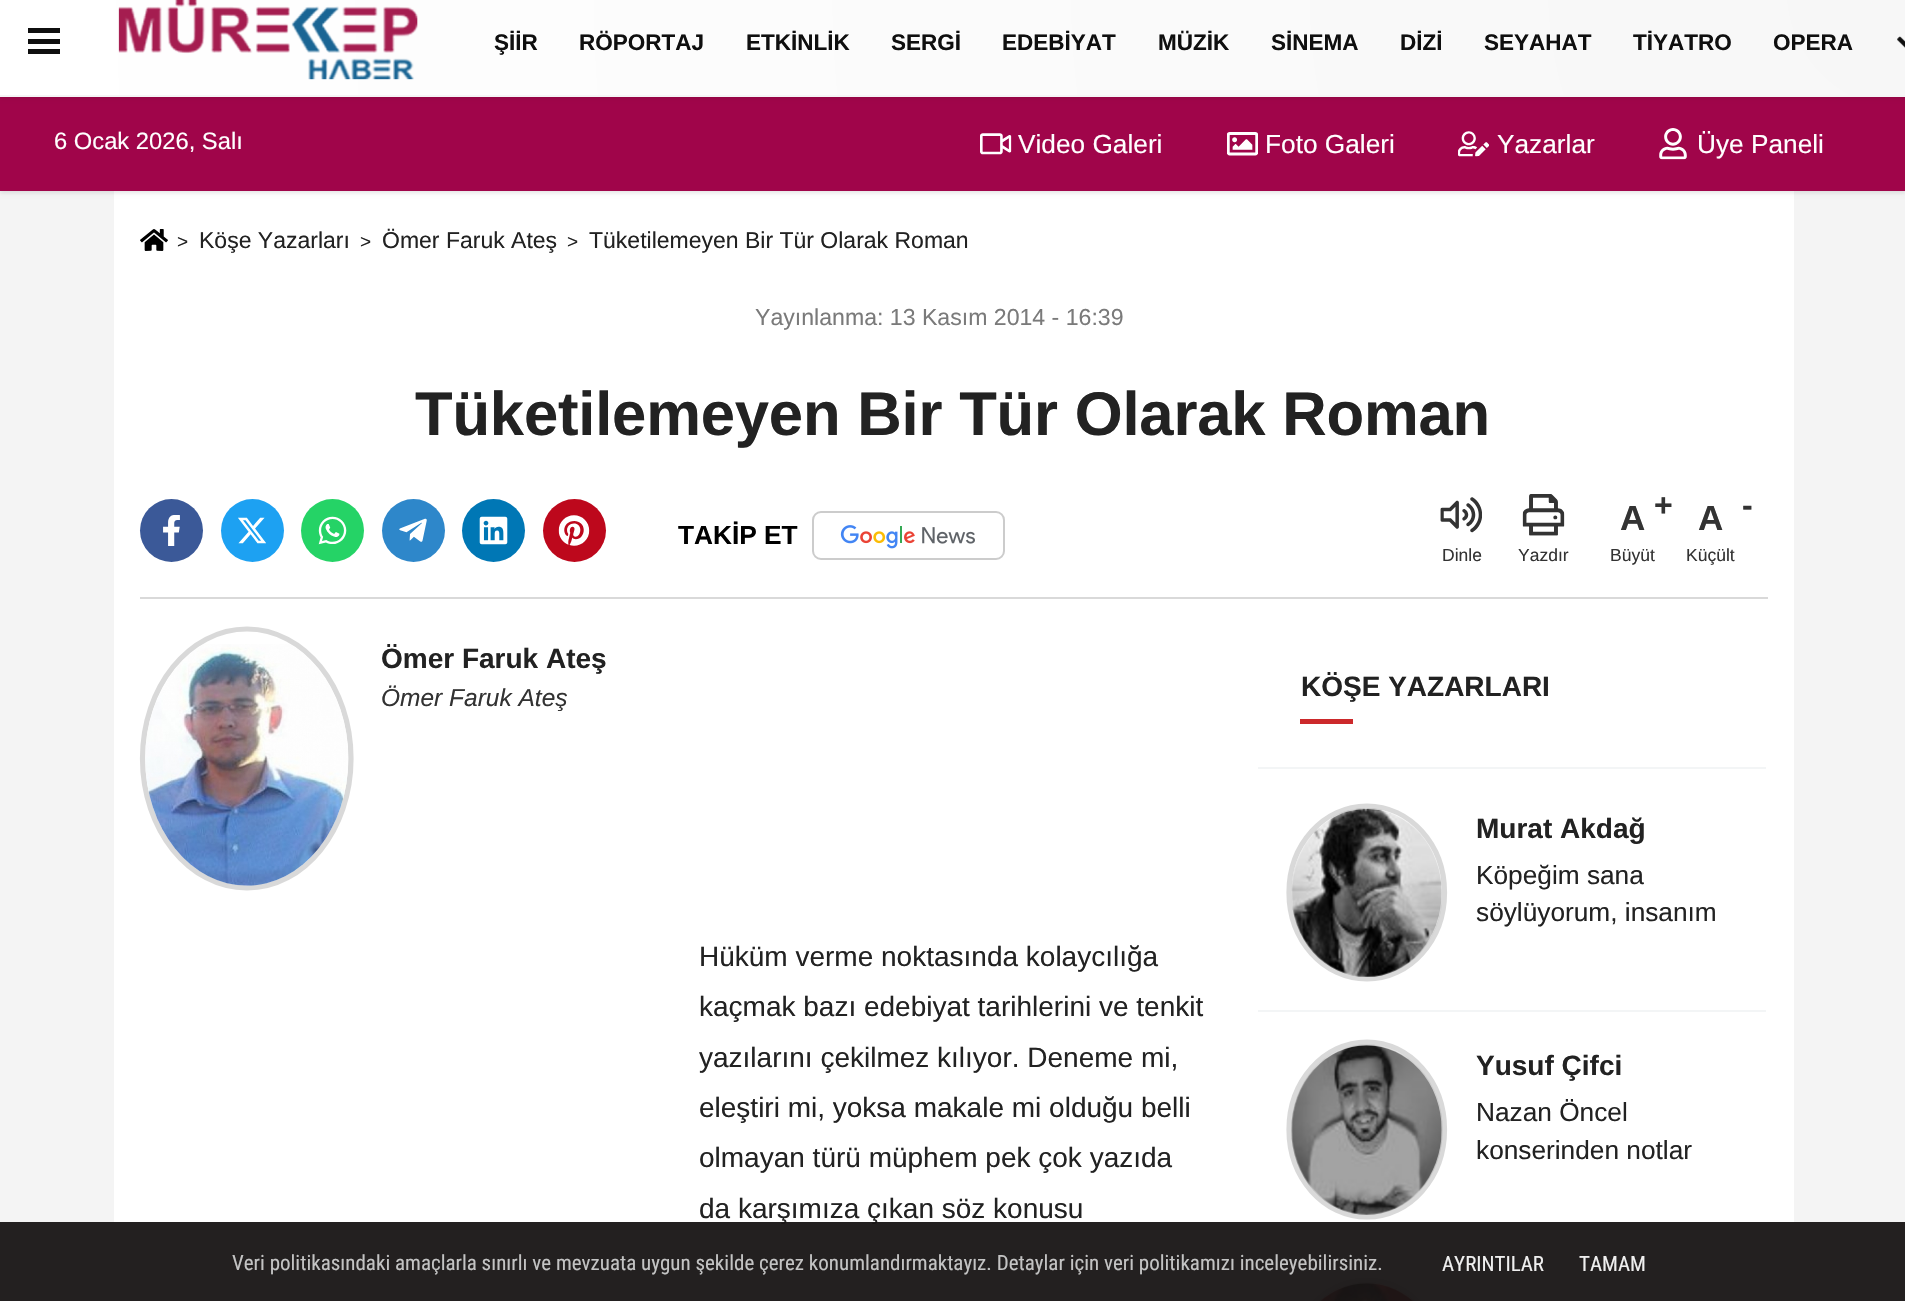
void draw(SkCanvas* c) {
SkPaint p;
p.setAntiAlias(true);
auto F=[&](const char* family, int weight, float size, bool italic = false){SkFontStyle style(weight, SkFontStyle::kNormal_Width,italic ? SkFontStyle::kItalic_Slant : SkFontStyle::kUpright_Slant);SkFont result(fontMgr->matchFamilyStyle(family, style), size);result.setSubpixel(true);return result;};
auto T=[&](const char* s, float x, float y, const SkFont& font){c->drawString(s, x, y, font, p);};
auto L=[&](const char* s, float x, float y, const SkFont& font, const SkPaint& ink, float letter, float word){std::vector<SkGlyphID> glyphs(font.countText(s, strlen(s), SkTextEncoding::kUTF8));std::vector<float> xs(glyphs.size());font.textToGlyphs(s, strlen(s), SkTextEncoding::kUTF8, glyphs);font.getXPos(glyphs, xs, x);float extra = 0;for (size_t i = 0; i < glyphs.size(); i++) {xs[i] += extra;extra += letter + word * (glyphs[i] == font.unicharToGlyph(' '));}c->drawTextBlob(SkTextBlob::MakeFromPosHGlyphs(glyphs, xs, y, font), 0, 0, ink);};
auto R=[&](float x, float y, float w, float h){c->drawRect(SkRect::MakeXYWH(x, y, w, h), p);};
auto I=[&](const char* path, float x, float y, float w, float h){auto image = SkImages::DeferredFromEncodedData(SkData::MakeFromFileName(path));c->drawImageRect(image, SkRect::MakeXYWH(x, y, w, h), SkSamplingOptions());};
auto P=[&](const char* data, bool evenOdd = false){SkPath result = *SkParsePath::FromSVGString(data);if (evenOdd) result.setFillType(SkPathFillType::kEvenOdd);return result;};
c->clear(0xfff4f4f4);
p.setColor(0xffffffff);
R(114,191,1680,1110);
p.setColor(0x1a000000);
p.setMaskFilter(SkMaskFilter::MakeBlur(kNormal_SkBlurStyle, 2));
c->drawRect(SkRect::MakeXYWH(0,98,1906,95),p);
p.setMaskFilter(nullptr);
p.setColor(0xffa0054a);
R(0,97,1905,94);
p.setColor(0x1a000000);
p.setMaskFilter(SkMaskFilter::MakeBlur(kNormal_SkBlurStyle, 2));
c->drawRect(SkRect::MakeXYWH(0,-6,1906,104),p);
p.setMaskFilter(nullptr);
{
const SkColor colors[] = {0xfff7f7f7,0xffffffff};
const float stops[] = {0,1};
p.setShader(SkGradientShader::MakeRadial({1906,-10}, 1909, colors, stops, 2, SkTileMode::kClamp));
p.setAlpha(255);
}
R(0,0,1905,95);
p.setShader(nullptr);
p.setColor(0xfff5f5f5);
R(0,95,1905,2);
p.setColor(0xff0f0f0f);
R(28,28,32,5);
R(28,39,32,5);
R(28,49,32,5);
I("1.png",118,0,300,80);
auto f1 = F("Liberation Sans",700,22.5);
T("ŞİİR",494,50,f1);
T("RÖPORTAJ",579,50,f1);
T("ETKİNLİK",746,50,f1);
T("SERGİ",891,50,f1);
T("EDEBİYAT",1002,50,f1);
T("MÜZİK",1158,50,f1);
T("SİNEMA",1271,50,f1);
T("DİZİ",1400,50,f1);
T("SEYAHAT",1484,50,f1);
T("TİYATRO",1633,50,f1);
T("OPERA",1773,50,f1);
I("2.png",1897,36,8,12);
auto f2 = F("Liberation Sans",400,23.75);
p.setColor(0xffffffff);
T("6 Ocak 2026, Salı",54,149,f2);
I("3.png",980,133,32,22);
auto f3 = F("Liberation Sans",400,26.25);
T("Video Galeri",1018,153,f3);
I("4.png",1227,132,31,24);
T("Foto Galeri",1265,153,f3);
I("5.png",1458,131,31,26);
T("Yazarlar",1497,153,f3);
I("6.png",1659,128,28,32);
T("Üye Paneli",1697,153,f3);
I("7.png",140,229,28,22);
auto f4 = F("Liberation Sans",400,19);
p.setColor(0xff222222);
T(">",177,248,f4);
auto f5 = F("Liberation Sans",400,23);
T("Köşe Yazarları",199,248,f5);
T(">",360,248,f4);
T("Ömer Faruk Ateş",382,248,f5);
T(">",567,248,f4);
T("Tüketilemeyen Bir Tür Olarak Roman",589,248,f5);
auto f6 = F("Liberation Sans",400,23.1);
p.setColor(0xff7a7a7a);
T("Yayınlanma: 13 Kasım 2014 - 16:39",755,325,f6);
auto f7 = F("Liberation Sans",700,61.6);
p.setColor(0xff222222);
L("Tüketilemeyen Bir Tür Olarak Roman",415,435,f7,p,-.2,0);
p.setColor(0xff3b5998);
c->drawCircle(171.5,530.5,31.5,p);
I("8.png",163,515,17,31);
p.setColor(0xff1da1f2);
c->drawCircle(252.5,530.5,31.5,p);
I("9.png",238,517,28,27);
p.setColor(0xff25d366);
c->drawCircle(332.5,530.5,31.5,p);
I("10.png",318,516,29,29);
p.setColor(0xff2e87ca);
c->drawCircle(413.5,530.5,31.5,p);
I("11.png",399,518,28,24);
p.setColor(0xff0077b5);
c->drawCircle(493.5,530.5,31.5,p);
I("12.png",479,516,29,29);
p.setColor(0xffbd081c);
c->drawCircle(574.5,530.5,31.5,p);
I("13.png",558,515,32,31);
auto f8 = F("Liberation Sans",700,26.25);
p.setColor(0xff000000);
T("TAKİP ET",678,544,f8);
p.setStroke(true);
p.setStrokeWidth(2);
p.setColor(0xffcccccc);
c->drawRoundRect(SkRect::MakeXYWH(813,512,191,47),8,8,p);
I("14.png",840,525,135,24);
I("15.png",1440,497,42,36);
auto f9 = F("Liberation Sans",400,17.5);
p.setStroke(false);
p.setColor(0xff333333);
T("Dinle",1442,561,f9);
I("16.png",1522,494,43,42);
T("Yazdır",1518,561,f9);
auto f10 = F("Liberation Sans",700,35);
T("A",1620,530,f10);
auto f11 = F("Liberation Sans",700,32);
T("+",1654,516,f11);
T("Büyüt",1610,561,f9);
T("A",1698,530,f10);
T("-",1742,516,f11);
T("Küçült",1686,561,f9);
p.setColor(0xffd9d9d9);
R(140,597,1628,2);
p.setStroke(true);
p.setStrokeWidth(5.2);
c->drawPath(P("M247 629c57.5 0 104 58 104 129.5c0 71.5-46.5 129.5-104 129.5c-58 0-104.5-58-104.5-129.5c0-71.5 46.5-129.5 104.5-129.5z"),p);
I("17.png",145,644,203,242);
auto f12 = F("Liberation Sans",700,28);
p.setStroke(false);
p.setColor(0xff222222);
T("Ömer Faruk Ateş",381,668,f12);
auto f13 = F("Liberation Sans",400,24.5,true);
p.setColor(0xff333333);
T("Ömer Faruk Ateş",381,706,f13);
auto f14 = F("Liberation Sans",400,28);
p.setColor(0xff222222);
T("Hüküm verme noktasında kolaycılığa",699,966,f14);
T("kaçmak bazı edebiyat tarihlerini ve tenkit",699,1016,f14);
T("yazılarını çekilmez kılıyor. Deneme mi,",699,1067,f14);
T("eleştiri mi, yoksa makale mi olduğu belli",699,1117,f14);
T("olmayan türü müphem pek çok yazıda",699,1167,f14);
T("da karşımıza çıkan söz konusu",699,1218,f14);
p.setColor(0xfff3f5f6);
R(1258,767,508,2);
p.setColor(0xff222222);
T("KÖŞE YAZARLARI",1301,696,f12);
p.setColor(0xffcc292b);
R(1300,719,53,5);
p.setColor(0xfff3f5f6);
R(1258,1010,508,2);
p.setStroke(true);
p.setColor(0xffd9d9d9);
c->drawPath(P("M1367 806c43 0 77.5 38.5 77.5 86.5c0 48-34.5 86.5-77.5 86.5c-43.5 0-78-38.5-78-86.5c0-48 34.5-86.5 78-86.5z"),p);
I("18.png",1291,808,151,169);
p.setStroke(false);
p.setColor(0xff222222);
T("Murat Akdağ",1476,838,f12);
T("Köpeğim sana",1476,884,f3);
T("söylüyorum, insanım",1476,921,f3);
p.setColor(0xfff3f5f6);
R(1258,1248,508,2);
p.setStroke(true);
p.setColor(0xffd9d9d9);
c->drawPath(P("M1367 1042c43 0 77.5 39.5 77.5 87.5c0 48.5-34.5 87.5-77.5 87.5c-43.5 0-78-39-78-87.5c0-48 34.5-87.5 78-87.5z"),p);
I("19.png",1291,1044,152,171);
p.setStroke(false);
p.setColor(0xff222222);
T("Yusuf Çifci",1476,1075,f12);
T("Nazan Öncel",1476,1121,f3);
T("konserinden notlar",1476,1159,f3);
p.setStroke(true);
p.setColor(0xffd9d9d9);
c->drawPath(P("M1367 1280c43 0 77.5 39.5 77.5 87.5c0 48.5-34.5 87.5-77.5 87.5c-43.5 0-78-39-78-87.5c0-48 34.5-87.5 78-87.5z"),p);
I("20.png",1319,1282,95,19);
p.setStroke(false);
p.setColor(0xf2171414);
R(0,1222,1905,79);
auto f15 = F("Roboto Condensed",400,21);
p.setColor(0xffc3c3c3);
T("Veri politikasındaki amaçlarla sınırlı ve mevzuata uygun şekilde çerez konumlandırmaktayız. Detaylar için veri politikamızı inceleyebilirsiniz.",232,1270,f15);
p.setColor(0xffefefef);
T("AYRINTILAR",1442,1271,f15);
T("TAMAM",1579,1271,f15);
}
